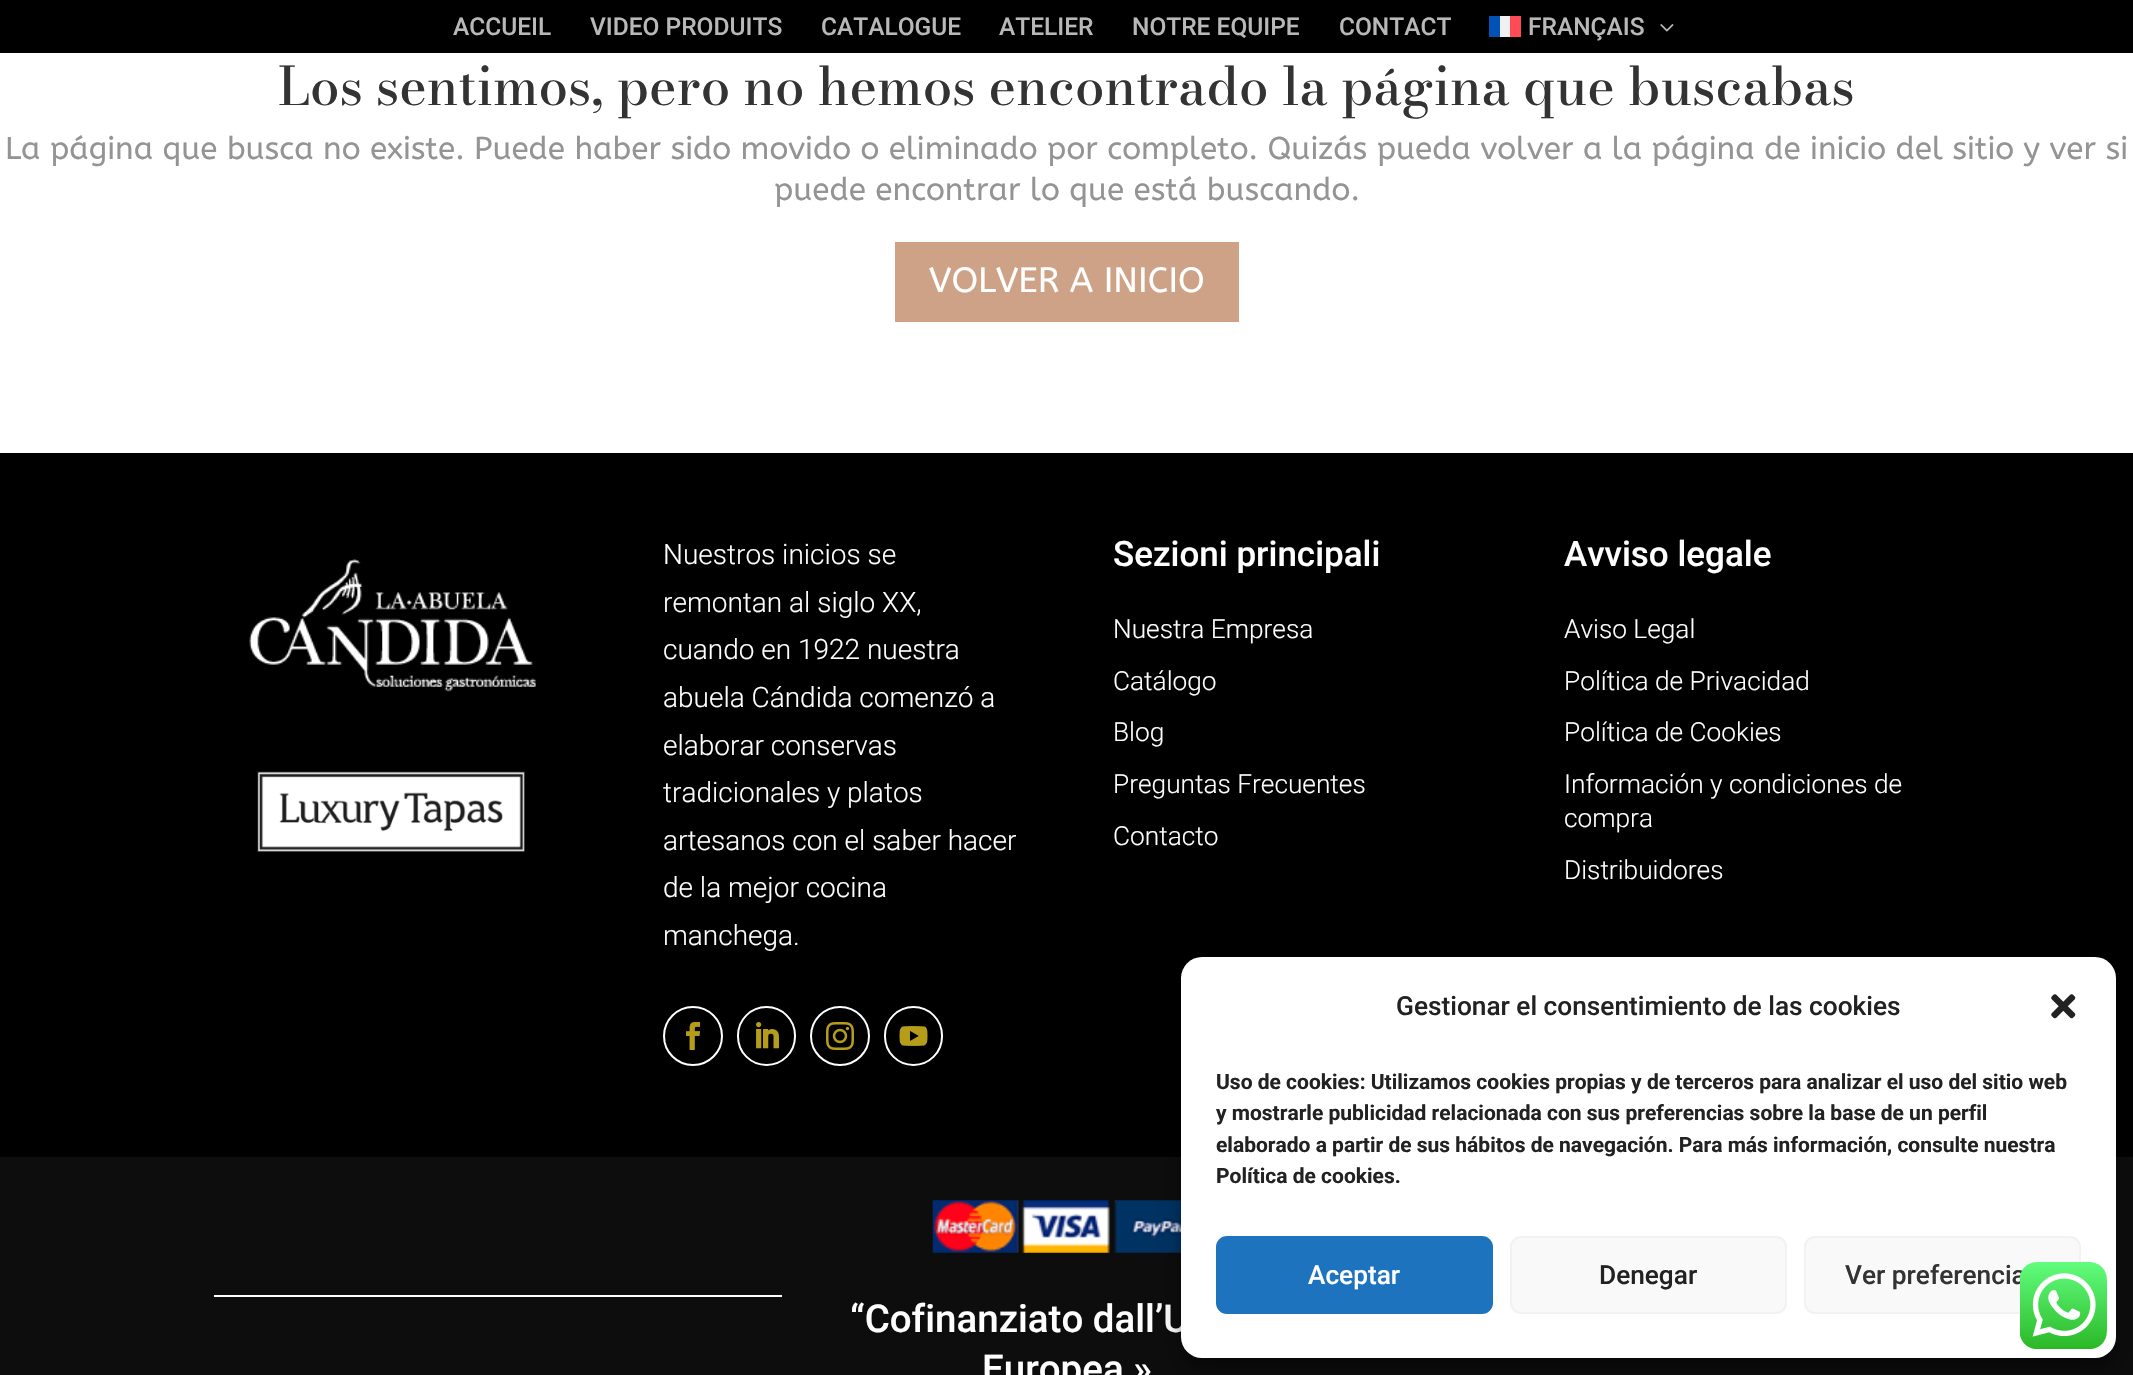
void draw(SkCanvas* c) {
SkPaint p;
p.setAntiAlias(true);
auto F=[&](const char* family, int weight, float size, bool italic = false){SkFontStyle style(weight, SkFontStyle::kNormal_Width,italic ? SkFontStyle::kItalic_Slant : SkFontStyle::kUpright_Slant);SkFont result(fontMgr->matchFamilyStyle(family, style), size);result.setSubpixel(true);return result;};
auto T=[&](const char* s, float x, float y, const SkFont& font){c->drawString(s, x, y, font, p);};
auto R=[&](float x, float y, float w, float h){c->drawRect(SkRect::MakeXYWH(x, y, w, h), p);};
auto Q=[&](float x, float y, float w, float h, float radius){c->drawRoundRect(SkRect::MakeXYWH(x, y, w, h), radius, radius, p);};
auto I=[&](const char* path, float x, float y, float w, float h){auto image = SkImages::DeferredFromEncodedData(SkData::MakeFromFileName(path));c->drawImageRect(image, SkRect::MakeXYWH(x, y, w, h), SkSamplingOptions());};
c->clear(0xffffffff);
p.setColor(0xff000000);
R(0,0,2133,53);
auto f1 = F("Roboto",500,24.5);
p.setColor(0xffb8b8b8);
T("ACCUEIL",453,35,f1);
T("VIDEO PRODUITS",590,35,f1);
T("CATALOGUE",821,35,f1);
T("ATELIER",999,35,f1);
T("NOTRE EQUIPE",1132,35,f1);
T("CONTACT",1339,35,f1);
p.setColor(0xfff0f0f0);
R(1500,16,10,21);
p.setColor(0xffff4b55);
R(1510,16,11,21);
p.setColor(0xff0052b4);
R(1489,16,11,21);
p.setColor(0xffb8b8b8);
T("FRANÇAIS",1528,35,f1);
I("1.png",1660,24,14,8);
auto f2 = F("Bodoni Moda",500,52.5);
p.setColor(0xff333333);
T("Los sentimos, pero no hemos encontrado la página que buscabas",278,105,f2);
auto f3 = F("ABeeZee",400,31.5);
p.setColor(0xff949494);
T("La página que busca no existe. Puede haber sido movido o eliminado por completo. Quizás pueda volver a la página de inicio del sitio y ver si",5,159,f3);
T("puede encontrar lo que está buscando.",774,200,f3);
p.setColor(0xffcda286);
R(895,242,344,80);
auto f4 = F("ABeeZee",400,35);
p.setColor(0xffffffff);
T("VOLVER A INICIO",929,292,f4);
p.setColor(0xff000000);
R(0,453,2133,704);
I("2.png",249,559,287,133);
I("3.png",257,771,268,81);
auto f5 = F("Roboto",300,28);
p.setColor(0xffffffff);
T("Nuestros inicios se",663,564,f5);
T("remontan al siglo XX,",663,612,f5);
T("cuando en 1922 nuestra",663,659,f5);
T("abuela Cándida comenzó a",663,707,f5);
T("elaborar conservas",663,755,f5);
T("tradicionales y platos",663,802,f5);
T("artesanos con el saber hacer",663,850,f5);
T("de la mejor cocina",663,897,f5);
T("manchega.",663,945,f5);
p.setStroke(true);
p.setStrokeWidth(2);
c->drawCircle(693,1036,29,p);
I("4.png",686,1022,15,28);
c->drawRoundRect(SkRect::MakeXYWH(738,1007,57,58),28.5,28.5,p);
I("5.png",756,1022,23,27);
c->drawCircle(840,1036,29,p);
I("6.png",826,1022,28,28);
c->drawRoundRect(SkRect::MakeXYWH(885,1007,57,58),28.5,28.5,p);
I("7.png",899,1026,29,20);
auto f6 = F("Roboto",500,35);
p.setStroke(false);
T("Sezioni principali",1113,566,f6);
auto f7 = F("Roboto",300,26.25);
T("Nuestra Empresa",1113,638,f7);
T("Catálogo",1113,690,f7);
T("Blog",1113,741,f7);
T("Preguntas Frecuentes",1113,793,f7);
T("Contacto",1113,845,f7);
T("Avviso legale",1564,566,f6);
T("Aviso Legal",1564,638,f7);
T("Política de Privacidad",1564,690,f7);
T("Política de Cookies",1564,741,f7);
T("Información y condiciones de",1564,793,f7);
T("compra",1564,827,f7);
T("Distribuidores",1564,879,f7);
p.setColor(0xff0d0d0d);
R(0,1157,2133,218);
I("8.png",932,1200,249,53);
p.setColor(0xffffffff);
R(214,1295,568,2);
auto f8 = F("Roboto",500,38.5);
T("“Cofinanziato dall’U",850,1332,f8);
T("Europea »",982,1382,f8);
p.setColor(0x3b000000);
p.setMaskFilter(SkMaskFilter::MakeBlur(kNormal_SkBlurStyle, 5));
c->drawRoundRect(SkRect::MakeXYWH(1181,968,935,401),21,21,p);
p.setMaskFilter(nullptr);
p.setColor(0x30000000);
p.setMaskFilter(SkMaskFilter::MakeBlur(kNormal_SkBlurStyle, 17.5));
c->drawRoundRect(SkRect::MakeXYWH(1181,975,935,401),21,21,p);
p.setMaskFilter(nullptr);
p.setColor(0xffffffff);
Q(1181,957,935,401,21);
auto f9 = F("Roboto",500,26.25);
p.setColor(0xff222222);
T("Gestionar el consentimiento de las cookies",1396,1015,f9);
I("9.png",2051,994,25,25);
auto f10 = F("Roboto",700,21);
T("Uso de cookies: Utilizamos cookies propias y de terceros para analizar el uso del sitio web",1216,1089,f10);
T("y mostrarle publicidad relacionada con sus preferencias sobre la base de un perfil",1216,1120,f10);
T("elaborado a partir de sus hábitos de navegación. Para más información, consulte nuestra",1216,1152,f10);
T("Política de cookies.",1216,1183,f10);
p.setColor(0xff1e73be);
c->drawRoundRect(SkRect::MakeXYWH(1217,1237,275,76),10,10,p);
p.setStroke(true);
c->drawRoundRect(SkRect::MakeXYWH(1217,1237,275,76),10,10,p);
p.setStroke(false);
p.setColor(0xffffffff);
T("Aceptar",1308,1284,f9);
p.setColor(0xfff9f9f9);
c->drawRoundRect(SkRect::MakeXYWH(1511,1237,275,76),10,10,p);
p.setStroke(true);
p.setColor(0xfff2f2f2);
c->drawRoundRect(SkRect::MakeXYWH(1511,1237,275,76),10,10,p);
p.setStroke(false);
p.setColor(0xff222222);
T("Denegar",1599,1284,f9);
p.setColor(0xfff9f9f9);
c->drawRoundRect(SkRect::MakeXYWH(1805,1237,275,76),10,10,p);
p.setStroke(true);
p.setColor(0xfff2f2f2);
c->drawRoundRect(SkRect::MakeXYWH(1805,1237,275,76),10,10,p);
p.setStroke(false);
p.setColor(0xff333333);
T("Ver preferencia",1845,1284,f9);
I("10.png",2020,1262,87,87);
}
